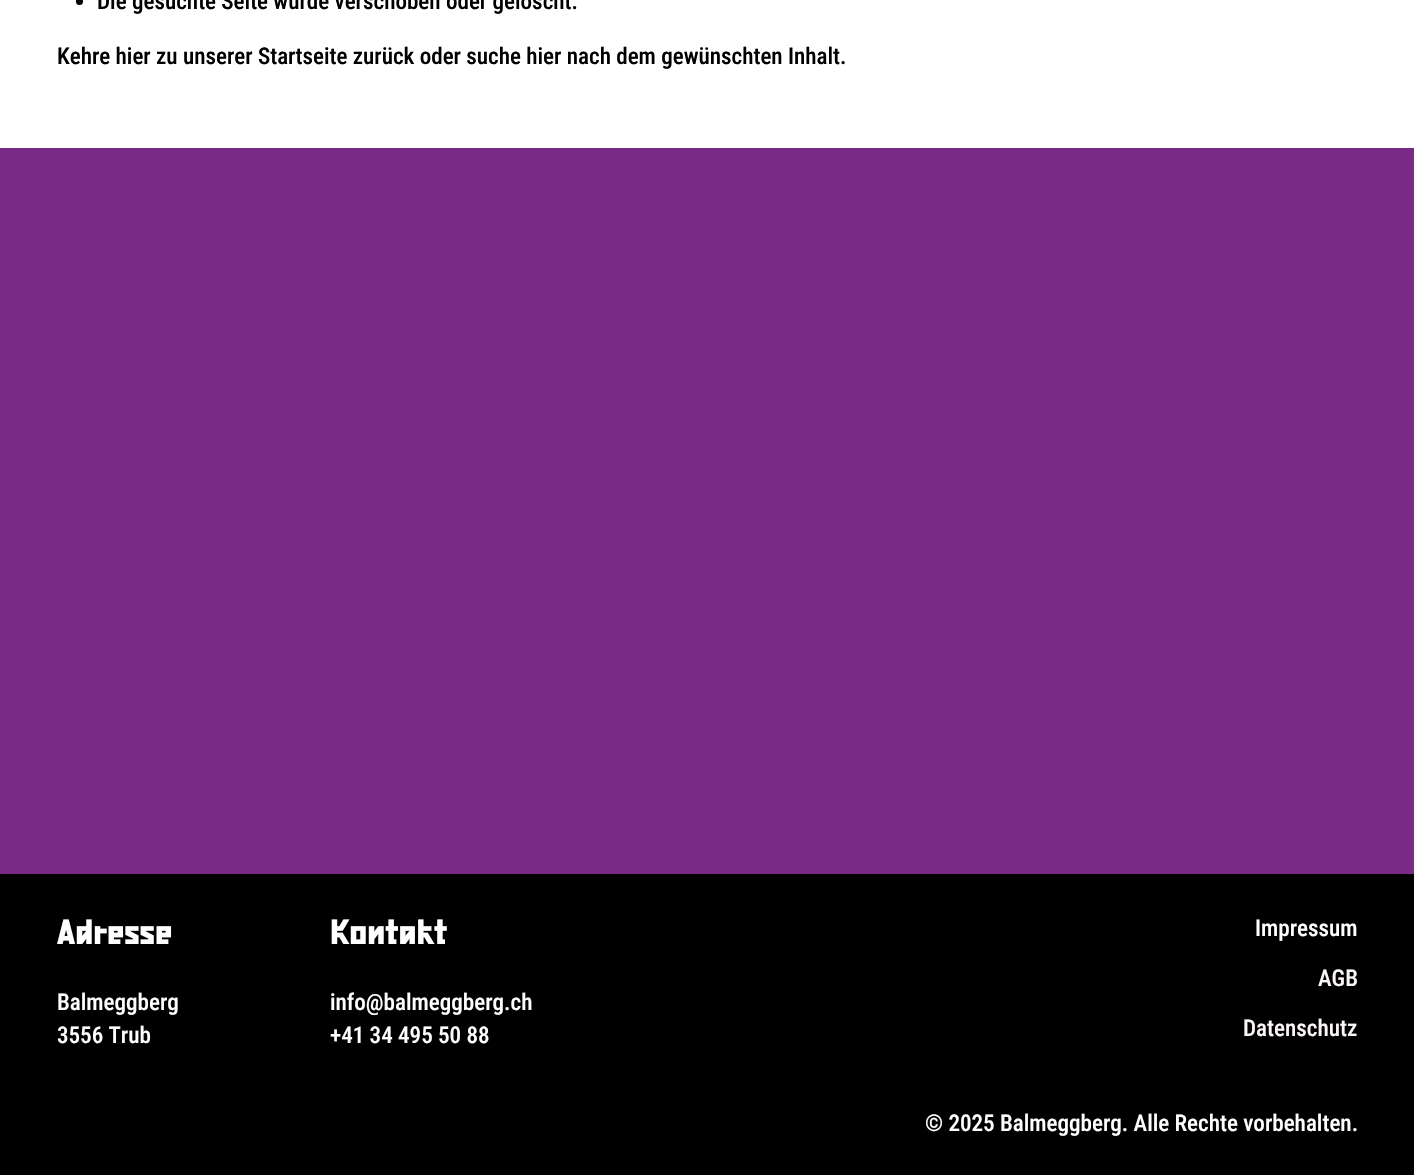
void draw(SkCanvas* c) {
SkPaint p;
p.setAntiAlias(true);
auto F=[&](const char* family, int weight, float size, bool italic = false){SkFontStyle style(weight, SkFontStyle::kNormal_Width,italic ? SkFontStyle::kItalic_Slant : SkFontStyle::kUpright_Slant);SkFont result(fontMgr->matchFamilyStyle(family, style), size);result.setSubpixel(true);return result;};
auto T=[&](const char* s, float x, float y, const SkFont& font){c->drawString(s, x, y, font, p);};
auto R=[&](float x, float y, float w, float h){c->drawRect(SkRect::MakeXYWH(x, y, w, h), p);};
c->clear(0xff792a87);
p.setColor(0xffffffff);
R(0,0,1414,148);
p.setColor(0xff000000);
c->drawCircle(79.5,1.5,3.5,p);
auto f1 = F("Roboto Condensed",500,23.1);
T("Die gesuchte Seite wurde verschoben oder gelöscht.",97,9,f1);
T("Kehre hier zu unserer Startseite zurück oder suche hier nach dem gewünschten Inhalt.",57,64,f1);
R(0,874,1414,301);
auto f2 = F("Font",700,35);
p.setColor(0xffffffff);
T("Adresse",57,944,f2);
T("Balmeggberg",57,1010,f1);
T("3556 Trub",57,1043,f1);
T("Kontakt",330,944,f2);
T("info@balmeggberg.ch",330,1010,f1);
T("+41 34 495 50 88",330,1043,f1);
T("Impressum",1255,936,f1);
p.setColor(0xfffbf7f7);
T("AGB",1318,986,f1);
T("Datenschutz",1243,1036,f1);
p.setColor(0xffffffff);
T("© 2025 Balmeggberg. Alle Rechte vorbehalten.",925,1131,f1);
}
